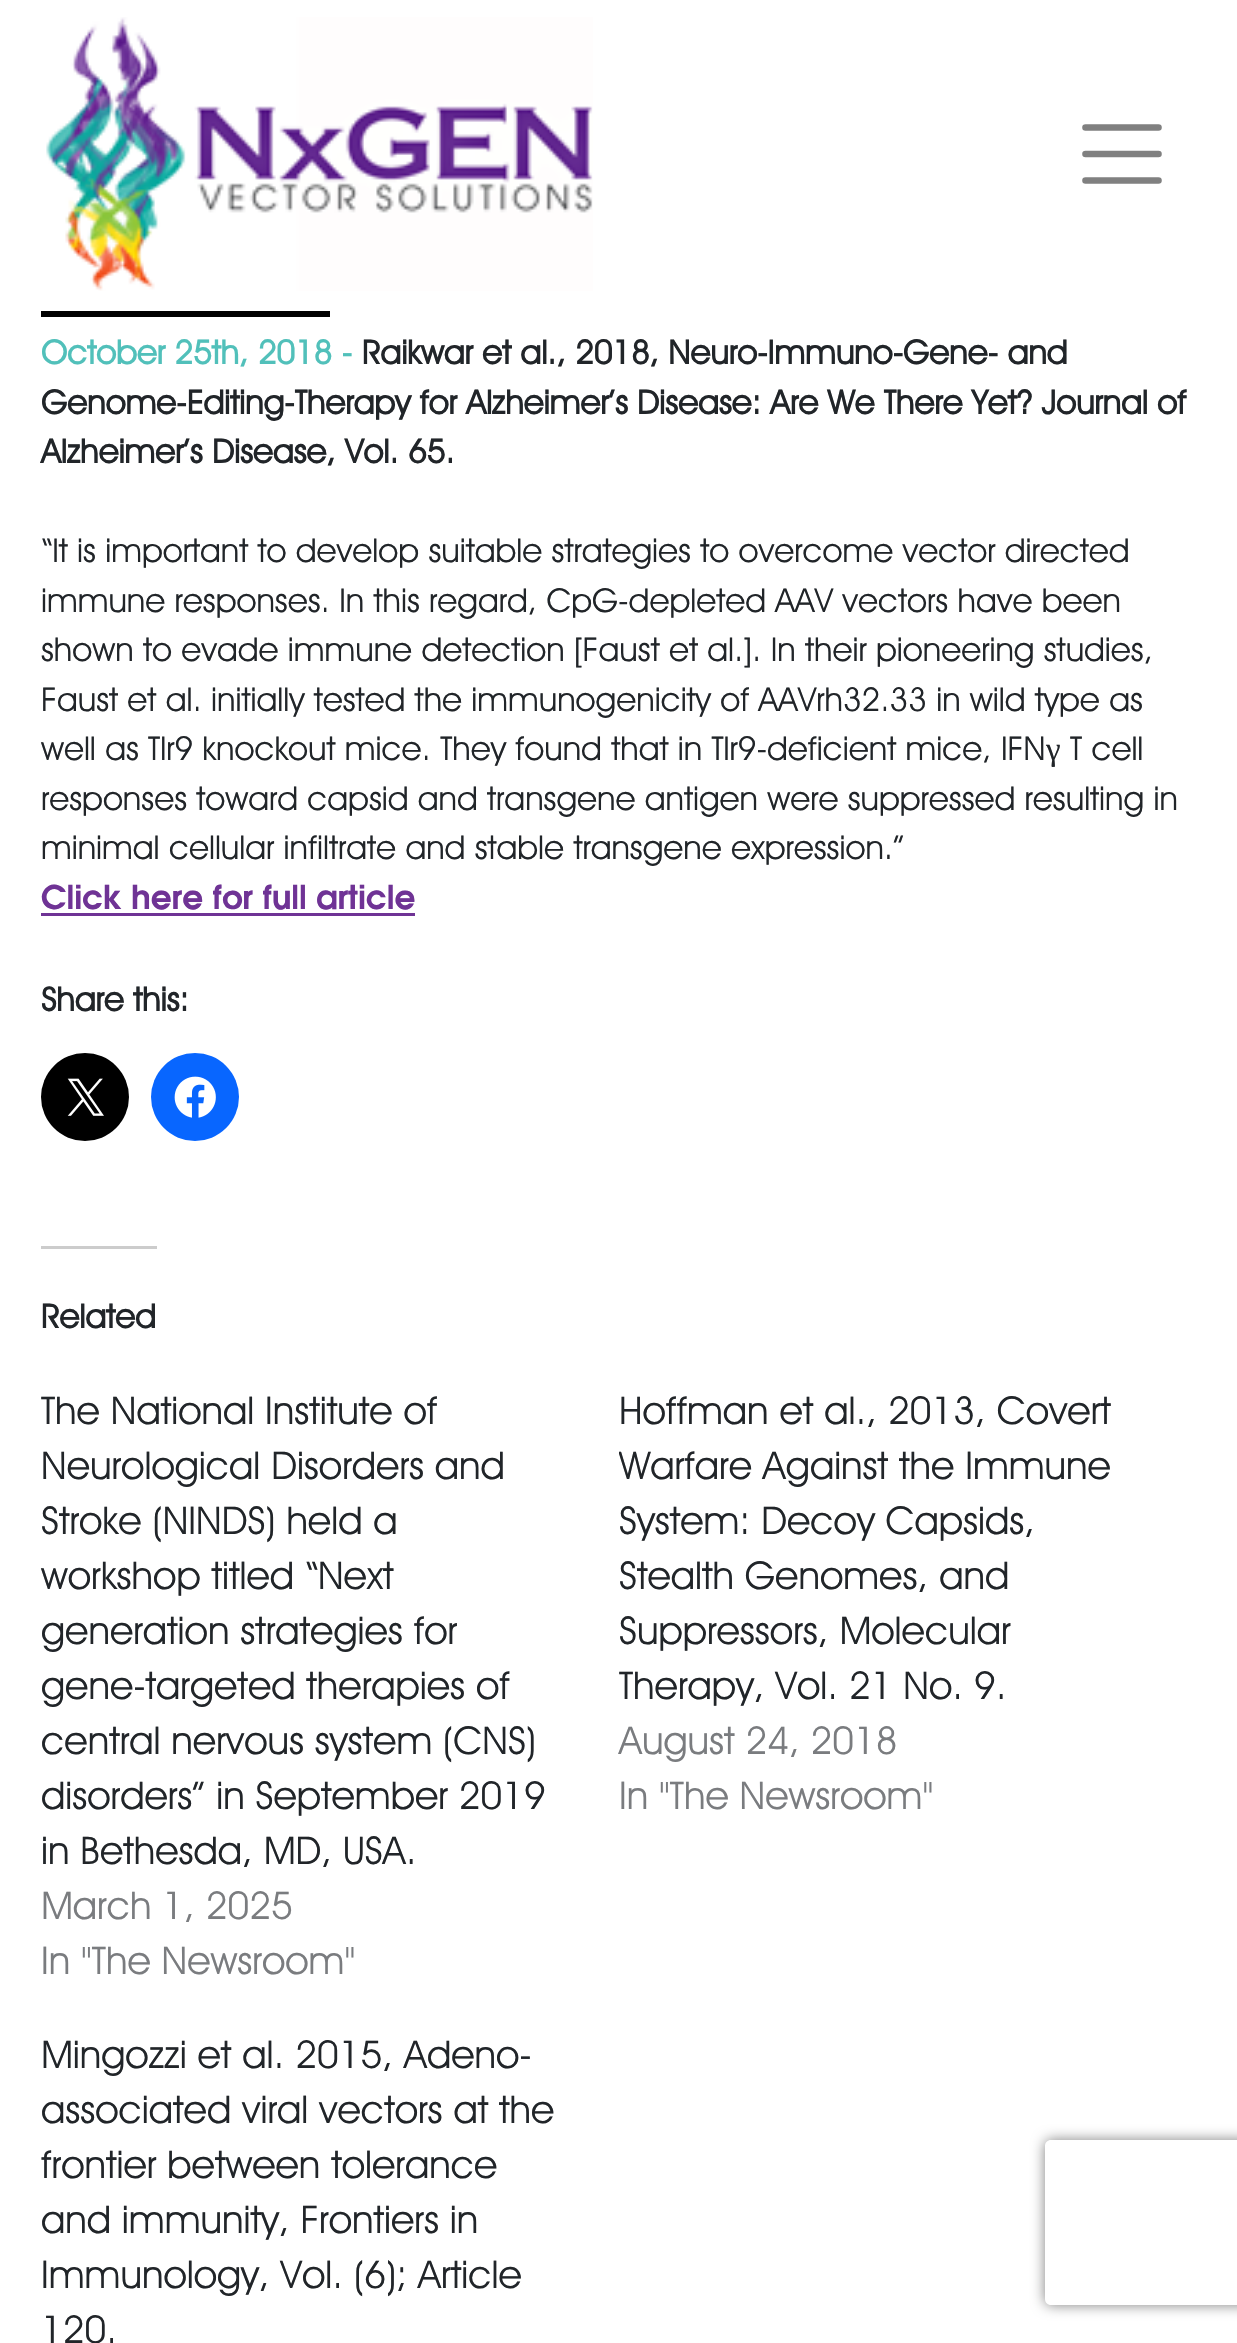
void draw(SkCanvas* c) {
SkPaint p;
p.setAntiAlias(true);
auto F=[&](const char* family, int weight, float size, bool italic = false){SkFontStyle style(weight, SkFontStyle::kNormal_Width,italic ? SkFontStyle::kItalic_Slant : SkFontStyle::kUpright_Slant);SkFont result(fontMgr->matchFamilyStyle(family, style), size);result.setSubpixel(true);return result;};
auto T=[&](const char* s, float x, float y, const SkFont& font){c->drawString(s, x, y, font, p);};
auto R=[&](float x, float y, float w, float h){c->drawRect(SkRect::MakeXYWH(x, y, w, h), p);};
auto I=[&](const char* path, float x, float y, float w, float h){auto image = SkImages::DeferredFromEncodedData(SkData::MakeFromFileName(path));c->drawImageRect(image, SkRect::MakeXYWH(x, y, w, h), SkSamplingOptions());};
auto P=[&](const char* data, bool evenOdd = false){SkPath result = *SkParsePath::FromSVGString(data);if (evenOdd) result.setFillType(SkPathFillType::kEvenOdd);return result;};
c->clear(0xffffffff);
I("1.png",46,17,547,274);
p.setStroke(true);
p.setStrokeWidth(6.6);
p.setStrokeCap(SkPaint::kRound_Cap);
p.setColor(0xff808080);
c->drawPath(P("M1085.5 127.5h73m-73 26.5h73m-73 26.5h73"),p);
p.setStroke(false);
p.setColor(0xff000000);
R(41,311,289,6);
auto f1 = F("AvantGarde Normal",700,33);
p.setColor(0xff51c0ba);
T("October 25th, 2018 -",41,364,f1);
p.setColor(0xff212529);
T("Raikwar et al., 2018, Neuro-Immuno-Gene- and",362,364,f1);
T("Genome-Editing-Therapy for Alzheimer’s Disease: Are We There Yet? Journal of",41,414,f1);
T("Alzheimer’s Disease, Vol. 65.",41,463,f1);
auto f2 = F("AvantGarde Normal",400,33);
T("“It is important to develop suitable strategies to overcome vector directed",41,562,f2);
T("immune responses. In this regard, CpG-depleted AAV vectors have been",41,612,f2);
T("shown to evade immune detection [Faust et al.]. In their pioneering studies,",41,661,f2);
T("Faust et al. initially tested the immunogenicity of AAVrh32.33 in wild type as",41,711,f2);
T("well as Tlr9 knockout mice. They found that in Tlr9-deficient mice, IFN",41,760,f2);
auto f3 = F("Liberation Serif",400,33);
T("γ",1046,760,f3);
T("T cell",1070,760,f2);
T("responses toward capsid and transgene antigen were suppressed resulting in",41,810,f2);
T("minimal cellular infiltrate and stable transgene expression.”",41,859,f2);
auto f4 = F("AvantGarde",700,33);
p.setColor(0xff6f3395);
T("Click here for full article",41,909,f4);
R(41,913,374,3);
p.setColor(0xff212529);
T("Share this:",41,1011,f1);
p.setColor(0xff000000);
c->drawCircle(85,1097,44,p);
I("2.png",67,1078,37,38);
p.setColor(0xff0866ff);
c->drawCircle(195,1097,44,p);
I("3.png",174,1076,42,42);
p.setColor(0xffcccccc);
R(41,1246,116,3);
p.setColor(0xff212529);
T("Related",41,1328,f1);
auto f5 = F("AvantGarde Normal",400,38.5);
T("The National Institute of",41,1424,f5);
T("Neurological Disorders and",41,1479,f5);
T("Stroke (NINDS) held a",41,1534,f5);
T("workshop titled “Next",41,1589,f5);
T("generation strategies for",41,1644,f5);
T("gene-targeted therapies of",41,1699,f5);
T("central nervous system (CNS)",41,1754,f5);
T("disorders” in September 2019",41,1809,f5);
T("in Bethesda, MD, USA.",41,1864,f5);
p.setColor(0xff7a7c7f);
T("March 1, 2025",41,1919,f5);
T("In \"The Newsroom\"",41,1974,f5);
p.setColor(0xff212529);
T("Hoffman et al., 2013, Covert",619,1424,f5);
c->save();
c->clipRect(SkRect::MakeXYWH(619,1383,520,330));
T("Warfare Against the Immune",619,1479,f5);
c->restore();
T("System: Decoy Capsids,",619,1534,f5);
T("Stealth Genomes, and",619,1589,f5);
T("Suppressors, Molecular",619,1644,f5);
T("Therapy, Vol. 21 No. 9.",619,1699,f5);
p.setColor(0xff7a7c7f);
T("August 24, 2018",619,1754,f5);
T("In \"The Newsroom\"",619,1809,f5);
p.setColor(0xff212529);
T("Mingozzi et al. 2015, Adeno-",41,2068,f5);
T("associated viral vectors at the",41,2123,f5);
T("frontier between tolerance",41,2178,f5);
T("and immunity, Frontiers in",41,2233,f5);
T("Immunology, Vol. (6); Article",41,2288,f5);
T("120.",41,2343,f5);
c->save();
c->clipPath(P("M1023 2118h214v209h-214zm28 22h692c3.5 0 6 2.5 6 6v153c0 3.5-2.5 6-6 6h-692c-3.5 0-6-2.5-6-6v-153c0-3.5 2.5-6 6-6z",true),true);
p.setColor(0xff808080);
p.setMaskFilter(SkMaskFilter::MakeBlur(kNormal_SkBlurStyle, 7));
c->drawRoundRect(SkRect::MakeXYWH(1045,2140,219,165),6,6,p);
p.setMaskFilter(nullptr);
c->restore();
}
